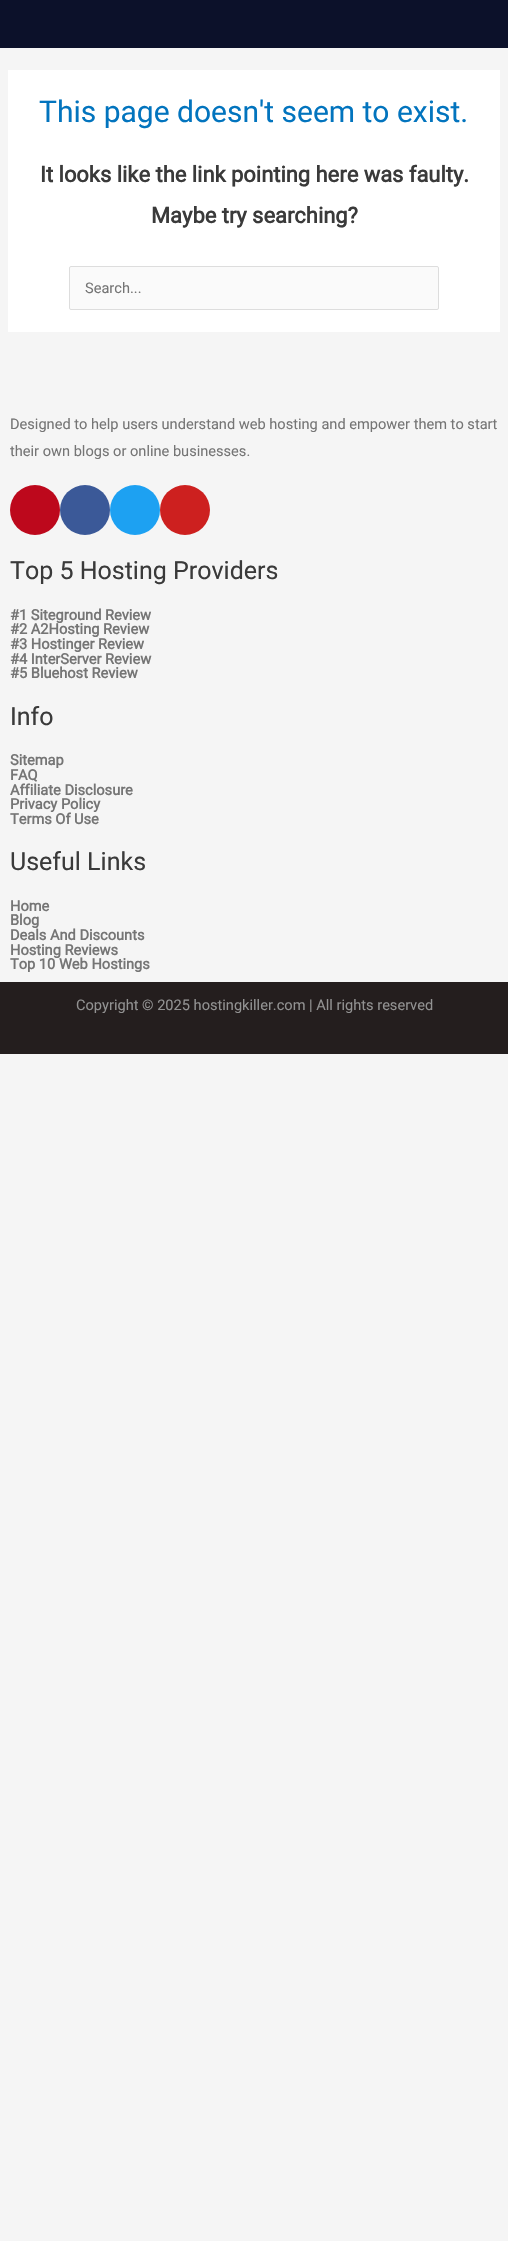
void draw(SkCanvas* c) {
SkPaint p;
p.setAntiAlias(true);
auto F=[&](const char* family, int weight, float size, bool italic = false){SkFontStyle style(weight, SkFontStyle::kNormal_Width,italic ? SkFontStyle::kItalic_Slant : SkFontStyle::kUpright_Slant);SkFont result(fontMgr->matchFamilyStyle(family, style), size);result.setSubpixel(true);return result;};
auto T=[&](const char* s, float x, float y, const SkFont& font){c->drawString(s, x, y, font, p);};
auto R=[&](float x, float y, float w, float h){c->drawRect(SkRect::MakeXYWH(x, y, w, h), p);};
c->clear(0xfff5f5f5);
p.setColor(0xff0c112a);
R(0,0,508,48);
p.setColor(0xffffffff);
R(8,70,492,262);
auto f1 = F("Roboto",400,30);
p.setColor(0xff0274be);
T("This page doesn't seem to exist.",39,122,f1);
auto f2 = F("Roboto",700,21.9);
p.setColor(0xff3a3a3a);
T("It looks like the link pointing here was faulty.",40,182,f2);
T("Maybe try searching?",151,223,f2);
p.setColor(0xfffafafa);
c->drawRoundRect(SkRect::MakeXYWH(69.5,266.5,369,43),1.5,1.5,p);
p.setStroke(true);
p.setStrokeWidth(1);
p.setColor(0xffdddddd);
c->drawRoundRect(SkRect::MakeXYWH(69.5,266.5,369,43),1.5,1.5,p);
auto f3 = F("Roboto",400,14.6);
p.setStroke(false);
p.setColor(0xff757575);
T("Search...",85,293,f3);
T("Designed to help users understand web hosting and empower them to start",10,429,f3);
T("their own blogs or online businesses.",10,456,f3);
p.setColor(0xffbd081c);
c->drawCircle(35,510,25,p);
p.setColor(0xff3b5998);
c->drawCircle(85,510,25,p);
p.setColor(0xff1da1f2);
c->drawCircle(135,510,25,p);
p.setColor(0xffcd201f);
c->drawCircle(185,510,25,p);
auto f4 = F("Roboto",400,25);
p.setColor(0xff3a3a3a);
T("Top 5 Hosting Providers",10,579,f4);
auto f5 = F("Roboto",700,14.6);
p.setColor(0xff757575);
T("#1 Siteground Review",10,620,f5);
T("#2 A2Hosting Review",10,634,f5);
T("#3 Hostinger Review",10,649,f5);
T("#4 InterServer Review",10,664,f5);
T("#5 Bluehost Review",10,678,f5);
p.setColor(0xff3a3a3a);
T("Info",10,725,f4);
p.setColor(0xff757575);
T("Sitemap",10,765,f5);
T("FAQ",10,780,f5);
T("Affiliate Disclosure",10,795,f5);
T("Privacy Policy",10,809,f5);
T("Terms Of Use",10,824,f5);
p.setColor(0xff3a3a3a);
T("Useful Links",10,870,f4);
p.setColor(0xff757575);
T("Home",10,911,f5);
T("Blog",10,925,f5);
T("Deals And Discounts",10,940,f5);
T("Hosting Reviews",10,955,f5);
T("Top 10 Web Hostings",10,969,f5);
p.setColor(0xff241e1e);
R(0,982,508,72);
p.setColor(0xff929292);
T("Copyright © 2025 hostingkiller.com | All rights reserved",76,1010,f3);
}
